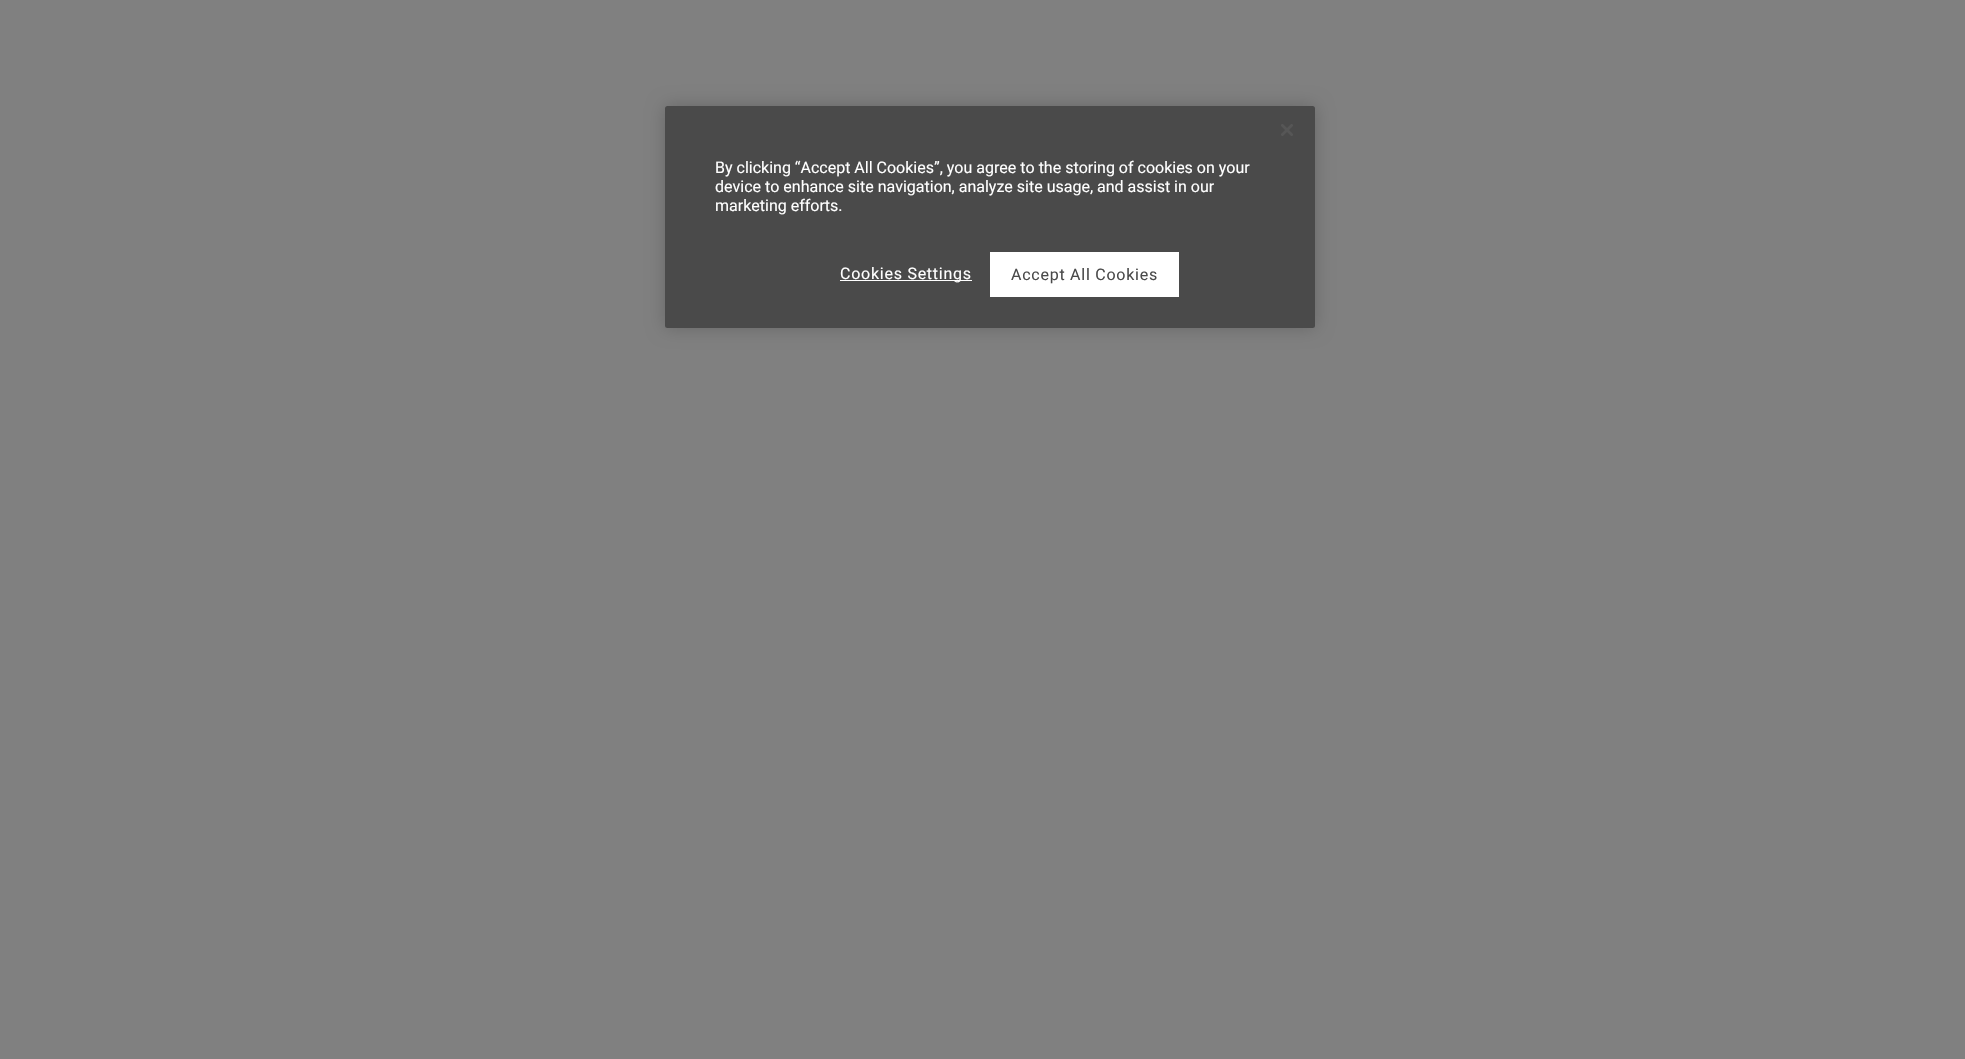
void draw(SkCanvas* c) {
SkPaint p;
p.setAntiAlias(true);
auto F=[&](const char* family, int weight, float size, bool italic = false){SkFontStyle style(weight, SkFontStyle::kNormal_Width,italic ? SkFontStyle::kItalic_Slant : SkFontStyle::kUpright_Slant);SkFont result(fontMgr->matchFamilyStyle(family, style), size);result.setSubpixel(true);return result;};
auto T=[&](const char* s, float x, float y, const SkFont& font){c->drawString(s, x, y, font, p);};
auto L=[&](const char* s, float x, float y, const SkFont& font, const SkPaint& ink, float letter, float word){std::vector<SkGlyphID> glyphs(font.countText(s, strlen(s), SkTextEncoding::kUTF8));std::vector<float> xs(glyphs.size());font.textToGlyphs(s, strlen(s), SkTextEncoding::kUTF8, glyphs);font.getXPos(glyphs, xs, x);float extra = 0;for (size_t i = 0; i < glyphs.size(); i++) {xs[i] += extra;extra += letter + word * (glyphs[i] == font.unicharToGlyph(' '));}c->drawTextBlob(SkTextBlob::MakeFromPosHGlyphs(glyphs, xs, y, font), 0, 0, ink);};
auto R=[&](float x, float y, float w, float h){c->drawRect(SkRect::MakeXYWH(x, y, w, h), p);};
auto Q=[&](float x, float y, float w, float h, float radius){c->drawRoundRect(SkRect::MakeXYWH(x, y, w, h), radius, radius, p);};
auto I=[&](const char* path, float x, float y, float w, float h){auto image = SkImages::DeferredFromEncodedData(SkData::MakeFromFileName(path));c->drawImageRect(image, SkRect::MakeXYWH(x, y, w, h), SkSamplingOptions());};
c->clear(0xff808080);
p.setColor(0x33000000);
p.setMaskFilter(SkMaskFilter::MakeBlur(kNormal_SkBlurStyle, 9));
c->drawRoundRect(SkRect::MakeXYWH(665,106,650,222),2.5,2.5,p);
p.setMaskFilter(nullptr);
p.setColor(0xff4a4a4a);
Q(665,106,650,222,2.5);
I("1.png",1281,124,12,12);
auto f1 = F("Roboto",400,16);
p.setColor(0xffffffff);
T("By clicking “Accept All Cookies”, you agree to the storing of cookies on your",715,173,f1);
T("device to enhance site navigation, analyze site usage, and assist in our",715,192,f1);
T("marketing efforts.",715,211,f1);
R(840,280,132,1);
L("Cookies Settings",840,279,f1,p,.75,0);
R(990,252,189,45);
p.setColor(0xff4a4a4a);
L("Accept All Cookies",1011,280,f1,p,.75,0);
}
